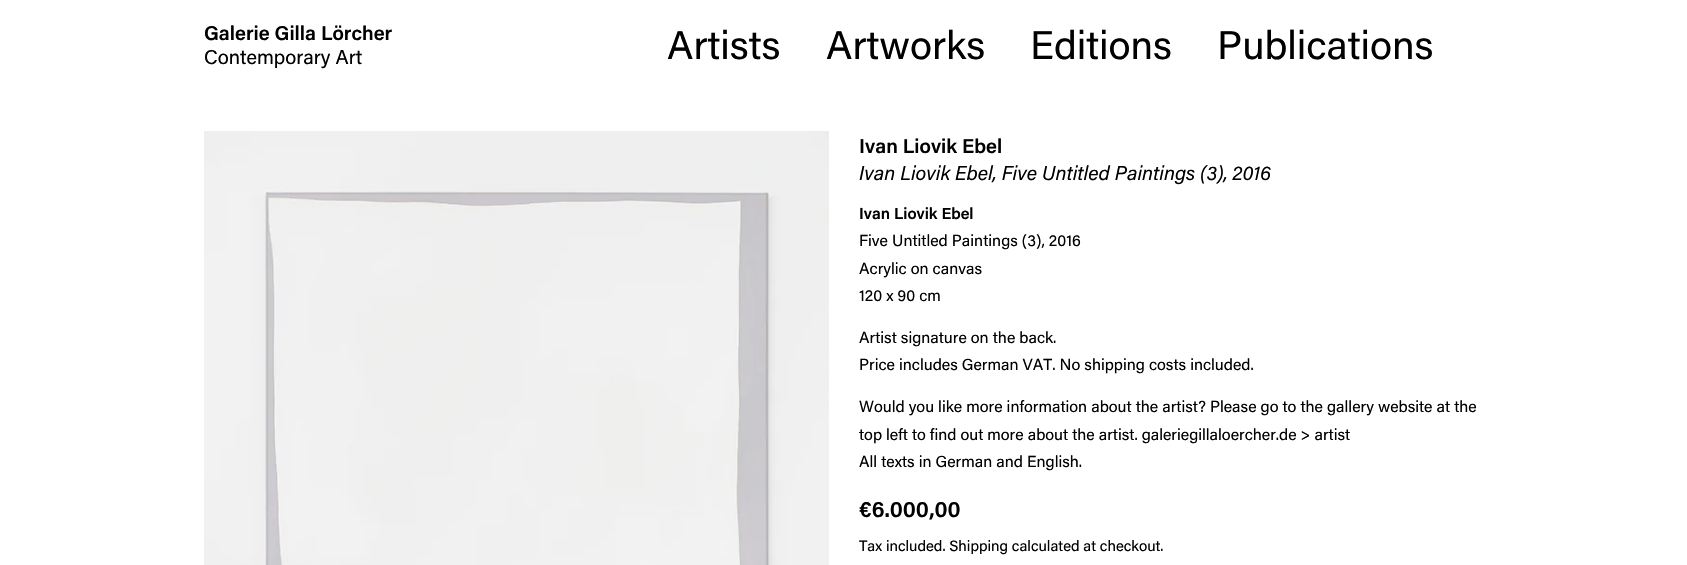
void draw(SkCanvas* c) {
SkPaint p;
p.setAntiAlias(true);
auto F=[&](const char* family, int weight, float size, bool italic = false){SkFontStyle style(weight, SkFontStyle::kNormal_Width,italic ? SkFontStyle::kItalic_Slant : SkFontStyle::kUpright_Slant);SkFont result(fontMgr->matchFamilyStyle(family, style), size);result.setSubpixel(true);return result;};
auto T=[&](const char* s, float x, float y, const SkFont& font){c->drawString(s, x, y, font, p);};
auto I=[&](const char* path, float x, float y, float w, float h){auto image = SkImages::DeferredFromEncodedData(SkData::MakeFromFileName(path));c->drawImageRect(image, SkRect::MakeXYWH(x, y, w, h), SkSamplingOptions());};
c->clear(0xffffffff);
auto f1 = F("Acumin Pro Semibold",600,20);
p.setColor(0xff000000);
T("Galerie Gilla Lörcher",204,40,f1);
auto f2 = F("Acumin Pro",400,20);
T("Contemporary Art",204,64,f2);
auto f3 = F("Acumin Pro",400,40);
T("Artists",667,59,f3);
T("Artworks",826,59,f3);
T("Editions",1030,59,f3);
T("Publications",1217,59,f3);
I("1.png",204,131,625,434);
T("Ivan Liovik Ebel",859,153,f1);
auto f4 = F("Acumin Pro",400,20,true);
T("Ivan Liovik Ebel, Five Untitled Paintings (3), 2016",859,180,f4);
auto f5 = F("Acumin Pro Semibold",600,16);
T("Ivan Liovik Ebel",859,219,f5);
auto f6 = F("Acumin Pro",400,16);
T("Five Untitled Paintings (3), 2016",859,246,f6);
T("Acrylic on canvas",859,274,f6);
T("120 x 90 cm",859,301,f6);
T("Artist signature on the back.",859,343,f6);
T("Price includes German VAT. No shipping costs included.",859,370,f6);
T("Would you like more information about the artist? Please go to the gallery website at the",859,412,f6);
T("top left to find out more about the artist. galeriegillaloercher.de > artist",859,440,f6);
T("All texts in German and English.",859,467,f6);
auto f7 = F("Acumin Pro Semibold",600,22.5);
T("€6.000,00",859,517,f7);
auto f8 = F("Acumin Pro",400,15);
T("Tax included. Shipping calculated at checkout.",859,551,f8);
}
